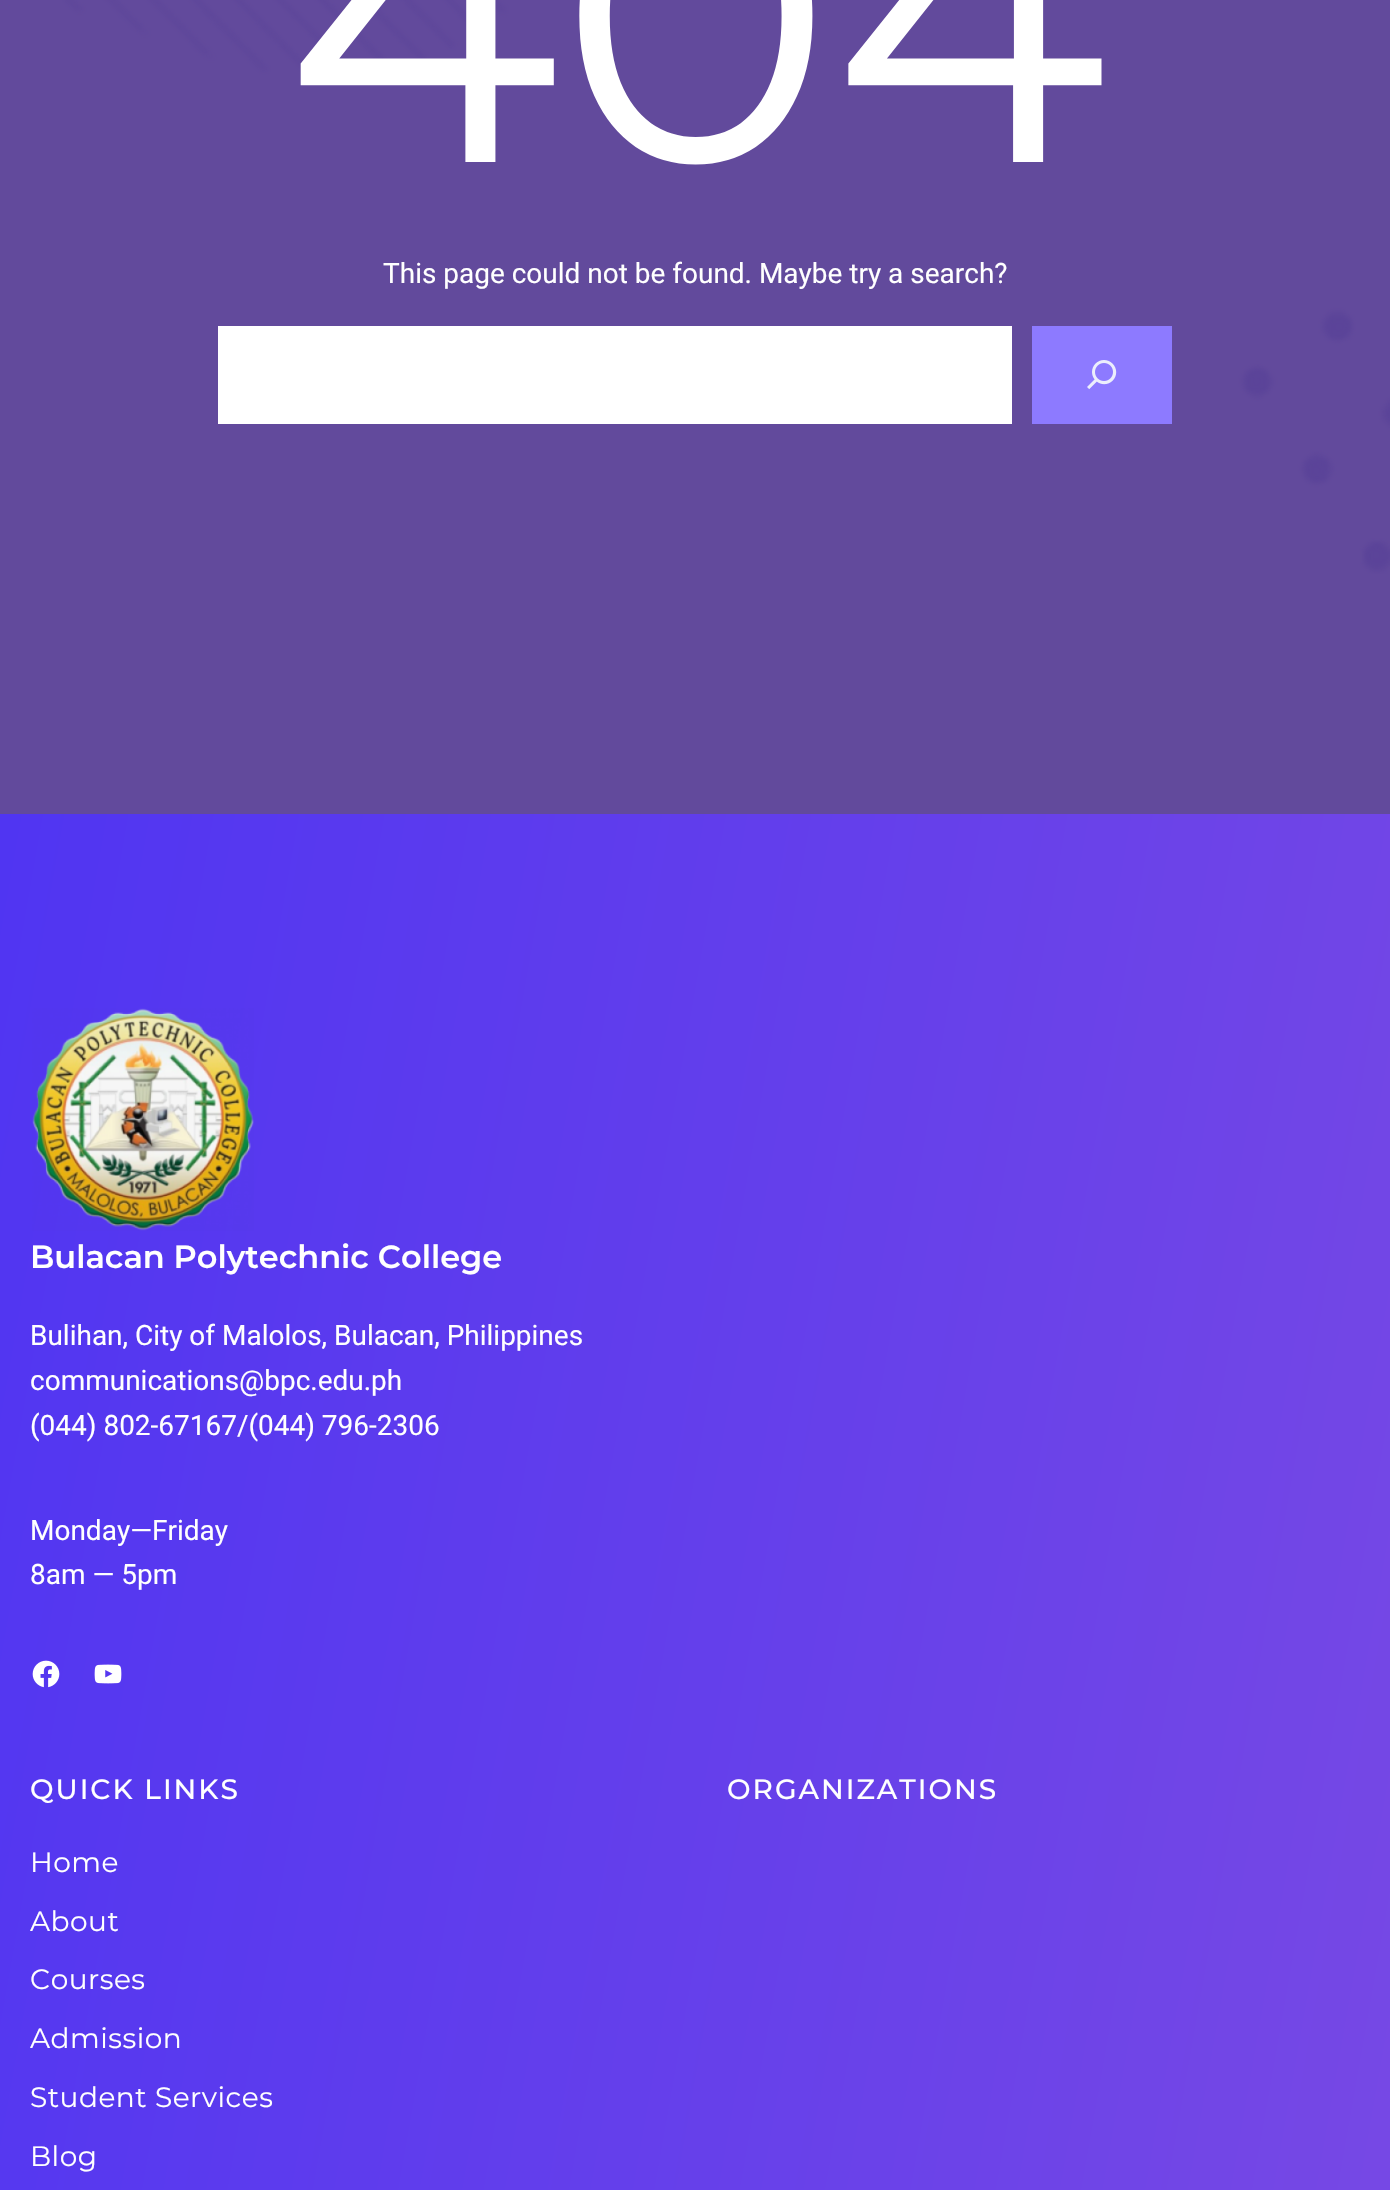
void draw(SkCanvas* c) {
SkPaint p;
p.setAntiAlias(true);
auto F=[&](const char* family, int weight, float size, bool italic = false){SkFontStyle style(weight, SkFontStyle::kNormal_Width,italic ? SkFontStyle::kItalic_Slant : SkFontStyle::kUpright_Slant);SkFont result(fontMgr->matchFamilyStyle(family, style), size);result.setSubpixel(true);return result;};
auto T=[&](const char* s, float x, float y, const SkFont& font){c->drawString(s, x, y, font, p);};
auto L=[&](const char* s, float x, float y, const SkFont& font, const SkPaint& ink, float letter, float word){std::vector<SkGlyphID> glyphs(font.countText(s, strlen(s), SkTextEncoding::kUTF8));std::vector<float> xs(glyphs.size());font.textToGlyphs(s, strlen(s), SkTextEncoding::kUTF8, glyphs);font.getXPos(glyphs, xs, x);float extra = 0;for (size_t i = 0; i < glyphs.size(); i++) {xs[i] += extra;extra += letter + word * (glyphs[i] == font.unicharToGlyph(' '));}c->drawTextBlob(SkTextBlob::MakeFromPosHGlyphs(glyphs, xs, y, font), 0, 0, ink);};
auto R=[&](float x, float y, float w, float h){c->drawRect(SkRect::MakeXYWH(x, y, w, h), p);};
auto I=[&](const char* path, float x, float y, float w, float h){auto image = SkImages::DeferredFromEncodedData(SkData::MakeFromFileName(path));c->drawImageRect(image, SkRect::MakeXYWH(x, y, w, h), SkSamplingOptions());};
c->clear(0xff624a9c);
I("1.png",62,0,1328,574);
auto f1 = F("Montserrat",400,417);
p.setColor(0xffffffff);
L("404",284,162,f1,p,-2,0);
auto f2 = F("Roboto",400,28);
T("This page could not be found. Maybe try a search?",383,283,f2);
R(218,326,794,98);
p.setColor(0xff8d7aff);
R(1032,326,140,98);
I("2.png",1087,360,30,30);
{
const SkColor colors[] = {0xff5035f2,0xff7849e4};
const float stops[] = {0,1};
const SkPoint ends[] = {{-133,1571}, {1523,1863}};
p.setShader(SkGradientShader::MakeLinear(ends, colors, stops, 2, SkTileMode::kClamp));
p.setAlpha(255);
}
R(0,814,1390,1376);
I("3.png",32,1008,222,223);
auto f3 = F("Montserrat",600,32);
p.setShader(nullptr);
p.setColor(0xffffffff);
T("Bulacan Polytechnic College",30,1268,f3);
T("Bulihan, City of Malolos, Bulacan, Philippines",30,1345,f2);
T("communications@bpc.edu.ph",30,1390,f2);
T("(044) 802-67167/(044) 796-2306",30,1435,f2);
T("Monday—Friday",30,1540,f2);
T("8am — 5pm",30,1584,f2);
I("4.png",32,1660,28,28);
I("5.png",94,1664,28,20);
auto f4 = F("Montserrat",500,28);
L("QUICK LINKS",30,1799,f4,p,2,0);
auto f5 = F("Montserrat",400,28);
L("Home",30,1872,f5,p,.5,0);
L("About",30,1931,f5,p,.5,0);
L("Courses",30,1989,f5,p,.5,0);
L("Admission",30,2048,f5,p,.5,0);
L("Student Services",30,2107,f5,p,.5,0);
L("Blog",30,2166,f5,p,.5,0);
L("ORGANIZATIONS",727,1799,f4,p,2,0);
}
